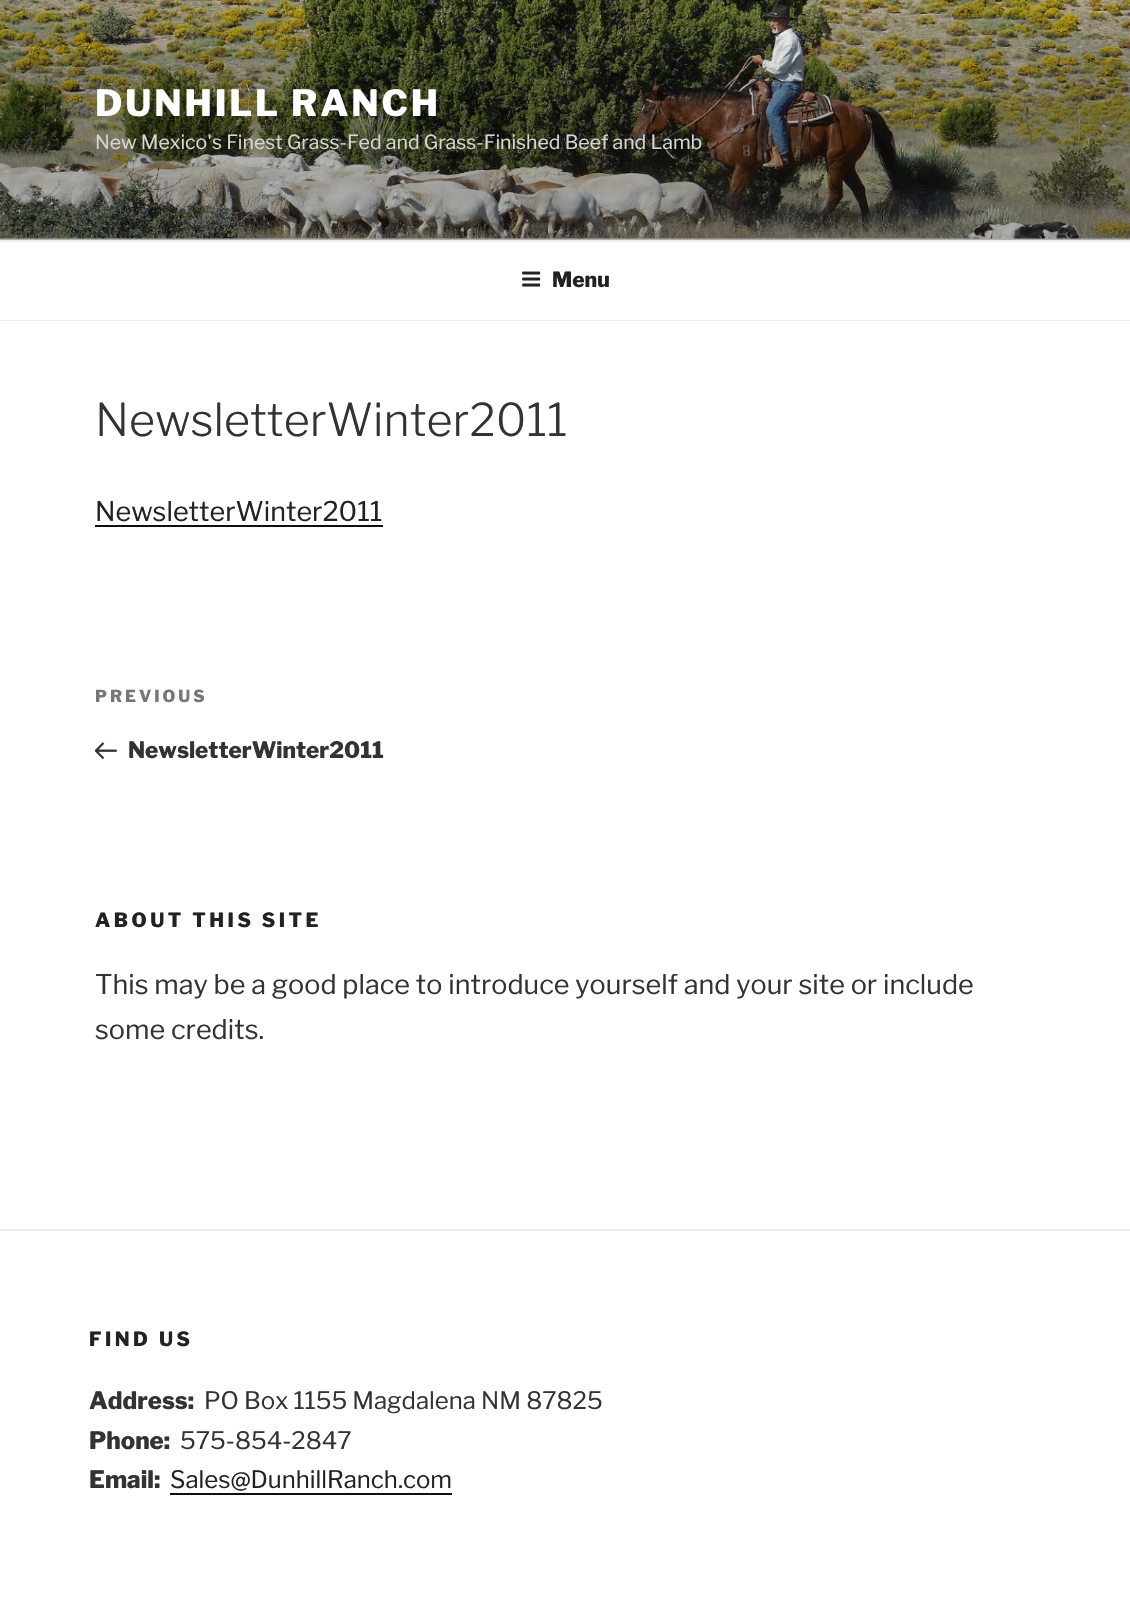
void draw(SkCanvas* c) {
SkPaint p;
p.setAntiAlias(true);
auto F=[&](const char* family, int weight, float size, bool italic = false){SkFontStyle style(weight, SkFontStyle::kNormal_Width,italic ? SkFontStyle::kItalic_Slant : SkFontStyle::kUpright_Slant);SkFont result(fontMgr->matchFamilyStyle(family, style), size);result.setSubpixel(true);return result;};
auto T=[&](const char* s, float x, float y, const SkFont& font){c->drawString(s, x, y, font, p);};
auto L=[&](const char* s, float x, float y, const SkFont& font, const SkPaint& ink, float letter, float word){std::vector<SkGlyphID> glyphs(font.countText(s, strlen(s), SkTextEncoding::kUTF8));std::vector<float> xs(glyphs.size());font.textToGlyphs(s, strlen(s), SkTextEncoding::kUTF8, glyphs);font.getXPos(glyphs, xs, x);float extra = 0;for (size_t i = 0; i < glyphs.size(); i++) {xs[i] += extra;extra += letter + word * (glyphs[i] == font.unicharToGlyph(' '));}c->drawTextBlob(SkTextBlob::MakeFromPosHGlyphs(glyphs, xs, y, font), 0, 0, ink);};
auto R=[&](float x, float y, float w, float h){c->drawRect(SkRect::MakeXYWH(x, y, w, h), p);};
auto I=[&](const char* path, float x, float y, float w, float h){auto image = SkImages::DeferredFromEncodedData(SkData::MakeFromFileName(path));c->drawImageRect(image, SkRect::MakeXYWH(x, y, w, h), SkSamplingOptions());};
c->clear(0xfffafafa);
I("1.png",0,0,1130,239);
{
const SkColor colors[] = {0x00000000,0x4d000000,0x4d000000};
const float stops[] = {0,.75,1};
const SkPoint ends[] = {{566,0}, {566,240}};
p.setShader(SkGradientShader::MakeLinear(ends, colors, stops, 3, SkTileMode::kClamp));
p.setAlpha(255);
}
R(0,13,1130,227);
auto f1 = F("Libre Franklin",100,36);
p.setShader(nullptr);
p.setColor(0xffffffff);
L("DUNHILL RANCH",95,116,f1,p,2.9,0);
auto f2 = F("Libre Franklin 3",100,19.5);
p.setColor(0xffd6d7d3);
T("New Mexico's Finest Grass-Fed and Grass-Finished Beef and Lamb",95,149,f2);
p.setColor(0xffffffff);
R(0,242,1130,78);
p.setColor(0xffeeeeee);
R(0,240,1130,2);
R(0,320,1130,1);
I("2.png",522,271,19,16);
auto f3 = F("Libre Franklin",100,21);
p.setColor(0xff222222);
T("Menu",552,287,f3);
p.setColor(0xffffffff);
R(0,321,1130,1298);
auto f4 = F("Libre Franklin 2",100,45);
p.setColor(0xff333333);
T("NewsletterWinter2011",95,436,f4);
auto f5 = F("Libre Franklin 3",100,27);
p.setColor(0xff222222);
T("NewsletterWinter2011",95,521,f5);
p.setColor(0xff0f0f0f);
R(95,525,288,2);
auto f6 = F("Libre Franklin",100,16.5);
p.setColor(0xff767676);
L("PREVIOUS",95,702,f6,p,3,0);
I("3.png",95,742,22,18);
auto f7 = F("Libre Franklin",100,22.5);
p.setColor(0xff333333);
T("NewsletterWinter2011",128,758,f7);
auto f8 = F("Libre Franklin",100,19.5);
p.setColor(0xff222222);
L("ABOUT THIS SITE",95,927,f8,p,3.5,0);
p.setColor(0xff333333);
T("This may be a good place to introduce yourself and your site or include",95,994,f5);
T("some credits.",95,1039,f5);
p.setColor(0xffeeeeee);
R(0,1229,1130,2);
p.setColor(0xff222222);
L("FIND US",89,1346,f8,p,3.5,0);
auto f9 = F("Libre Franklin",100,24);
p.setColor(0xff333333);
T("Address:",89,1409,f9);
auto f10 = F("Libre Franklin 3",100,24);
T("PO Box 1155 Magdalena NM 87825",204,1409,f10);
T("Phone:",89,1449,f9);
T("575-854-2847",180,1449,f10);
T("Email:",89,1488,f9);
p.setColor(0xff222222);
T("Sales@DunhillRanch.com",170,1488,f10);
p.setColor(0xff0f0f0f);
R(170,1493,282,2);
}
